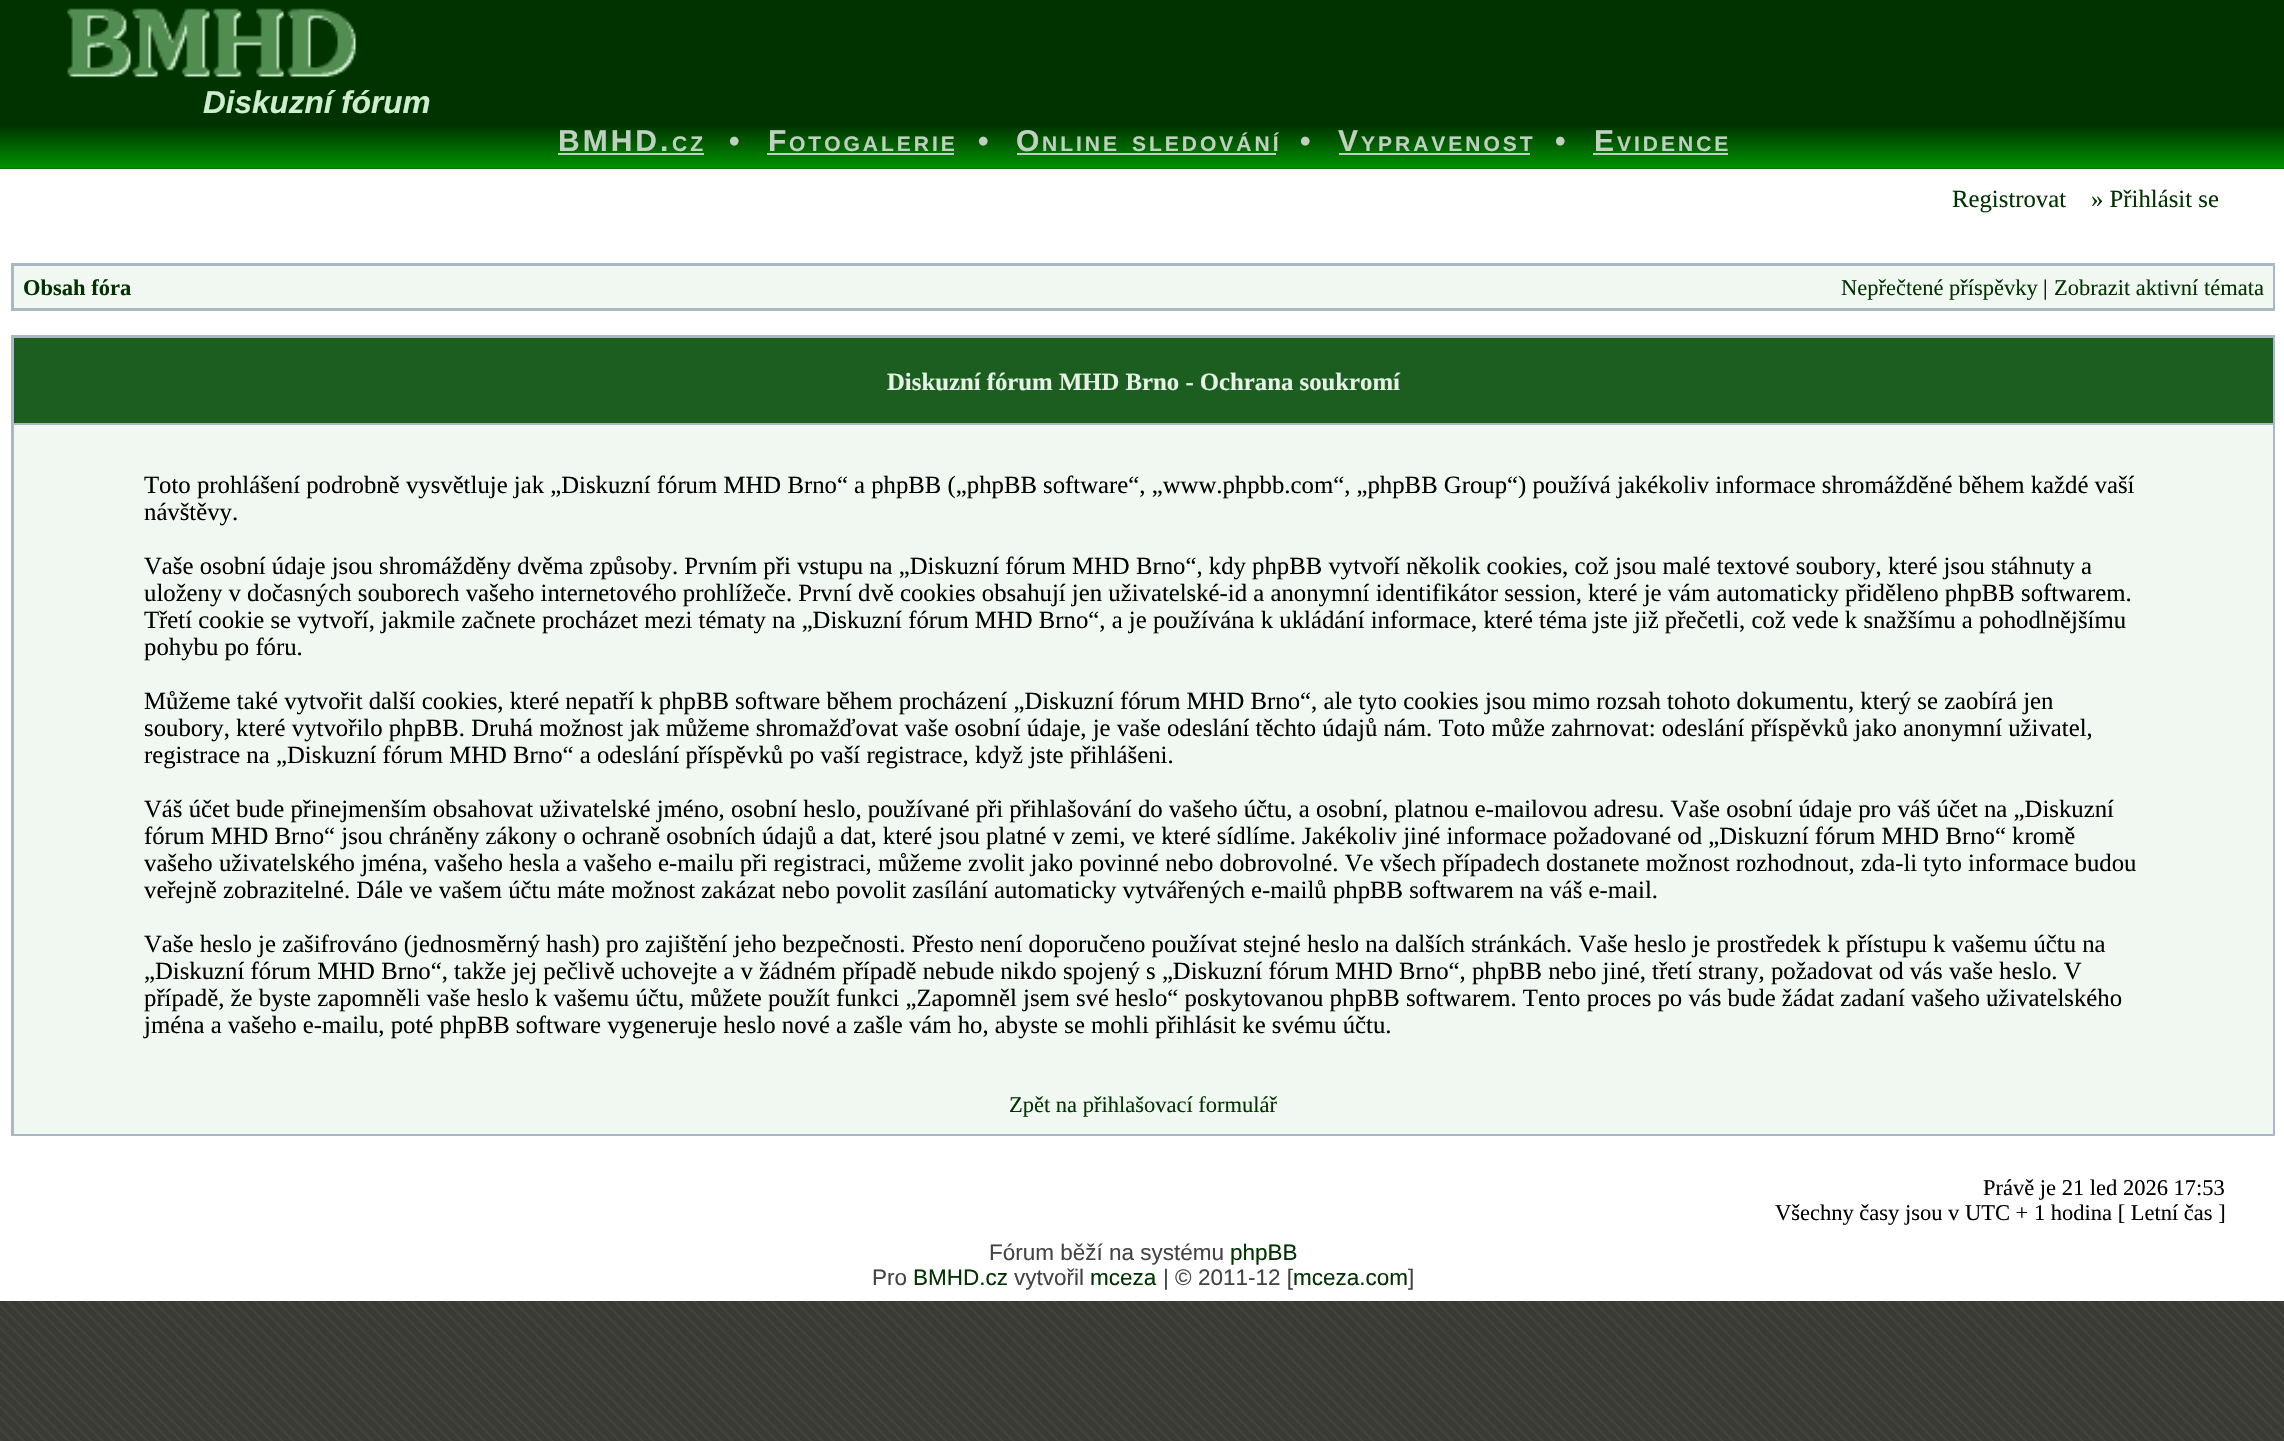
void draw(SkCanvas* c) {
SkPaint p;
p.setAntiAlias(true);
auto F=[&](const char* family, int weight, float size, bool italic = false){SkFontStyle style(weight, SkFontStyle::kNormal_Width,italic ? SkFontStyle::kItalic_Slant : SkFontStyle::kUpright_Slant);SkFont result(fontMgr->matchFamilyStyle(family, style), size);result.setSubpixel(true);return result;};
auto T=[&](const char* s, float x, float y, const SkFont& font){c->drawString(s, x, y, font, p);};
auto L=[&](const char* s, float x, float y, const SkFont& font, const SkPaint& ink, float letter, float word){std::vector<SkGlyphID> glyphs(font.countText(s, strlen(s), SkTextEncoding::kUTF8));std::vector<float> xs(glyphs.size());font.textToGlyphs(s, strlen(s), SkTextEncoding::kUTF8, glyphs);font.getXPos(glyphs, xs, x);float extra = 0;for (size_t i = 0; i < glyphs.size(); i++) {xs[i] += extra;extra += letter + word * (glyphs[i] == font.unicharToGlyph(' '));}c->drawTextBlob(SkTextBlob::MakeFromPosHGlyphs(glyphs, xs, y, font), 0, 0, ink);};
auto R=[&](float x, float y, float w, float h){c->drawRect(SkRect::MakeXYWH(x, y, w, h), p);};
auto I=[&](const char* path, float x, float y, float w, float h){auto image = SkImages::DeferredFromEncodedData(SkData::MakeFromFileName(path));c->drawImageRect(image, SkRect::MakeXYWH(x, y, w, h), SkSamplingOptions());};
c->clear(0xffffffff);
I("1.png",0,1301,2284,140);
p.setColor(0xff003300);
R(0,0,2284,169);
I("2.png",0,127,2284,42);
I("3.png",67,8,290,70);
auto f1 = F("Liberation Sans",700,31.5,true);
p.setColor(0xffcdeecd);
T("Diskuzní fórum",203,113,f1);
auto f2 = F("Liberation Sans",700,30);
p.setColor(0xffc0d0c0);
L("BMHD.",558,151,f2,p,3,0);
auto f3 = F("Liberation Sans",700,21);
L("CZ",672,151,f3,p,3,0);
R(558,153,146,2);
L("•",729,151,f2,p,3,0);
L("F",768,151,f2,p,3,0);
L("OTOGALERIE",789,151,f3,p,3,0);
R(767,153,187,2);
L("•",978,151,f2,p,3,0);
L("O",1016,151,f2,p,3,0);
L("NLINE",1042,151,f3,p,3,0);
R(1017,153,259,2);
L("SLEDOVÁNÍ",1132,151,f3,p,3,0);
L("•",1300,151,f2,p,3,0);
L("V",1338,151,f2,p,3,0);
L("YPRAVENOST",1361,151,f3,p,3,0);
R(1339,153,191,2);
L("•",1555,151,f2,p,3,0);
L("E",1594,151,f2,p,3,0);
L("VIDENCE",1617,151,f3,p,3,0);
R(1593,153,135,2);
auto f4 = F("Liberation Serif",400,24.75);
p.setColor(0xff003300);
T("Registrovat",1952,207,f4);
T("» Přihlásit se",2091,207,f4);
p.setColor(0xffa9b8c2);
R(11,263,2264,48);
p.setColor(0xfff1f8f1);
R(14,266,2259,42);
auto f5 = F("Liberation Serif",700,22.5);
p.setColor(0xff003300);
T("Obsah fóra",23,295,f5);
auto f6 = F("Liberation Serif",400,22.5);
T("Nepřečtené příspěvky",1841,295,f6);
p.setColor(0xff000000);
T("|",2043,295,f6);
p.setColor(0xff003300);
T("Zobrazit aktivní témata",2054,295,f6);
p.setColor(0xffa9b8c2);
R(11,335,2264,801);
p.setColor(0xff1b5e20);
R(14,338,2259,85);
auto f7 = F("Liberation Serif",700,24.75);
p.setColor(0xffe6f2e6);
T("Diskuzní fórum MHD Brno - Ochrana soukromí",887,390,f7);
p.setColor(0xfff1f8f1);
R(14,425,2259,709);
p.setColor(0xff000000);
T("Toto prohlášení podrobně vysvětluje jak „Diskuzní fórum MHD Brno“ a phpBB („phpBB software“, „www.phpbb.com“, „phpBB Group“) používá jakékoliv informace shromážděné během každé vaší",144,493,f4);
T("návštěvy.",144,520,f4);
T("Vaše osobní údaje jsou shromážděny dvěma způsoby. Prvním při vstupu na „Diskuzní fórum MHD Brno“, kdy phpBB vytvoří několik cookies, což jsou malé textové soubory, které jsou stáhnuty a",144,574,f4);
T("uloženy v dočasných souborech vašeho internetového prohlížeče. První dvě cookies obsahují jen uživatelské-id a anonymní identifikátor session, které je vám automaticky přiděleno phpBB softwarem.",144,601,f4);
T("Třetí cookie se vytvoří, jakmile začnete procházet mezi tématy na „Diskuzní fórum MHD Brno“, a je používána k ukládání informace, které téma jste již přečetli, což vede k snažšímu a pohodlnějšímu",144,628,f4);
T("pohybu po fóru.",144,655,f4);
T("Můžeme také vytvořit další cookies, které nepatří k phpBB software během procházení „Diskuzní fórum MHD Brno“, ale tyto cookies jsou mimo rozsah tohoto dokumentu, který se zaobírá jen",144,709,f4);
T("soubory, které vytvořilo phpBB. Druhá možnost jak můžeme shromažďovat vaše osobní údaje, je vaše odeslání těchto údajů nám. Toto může zahrnovat: odeslání příspěvků jako anonymní uživatel,",144,736,f4);
T("registrace na „Diskuzní fórum MHD Brno“ a odeslání příspěvků po vaší registrace, když jste přihlášeni.",144,763,f4);
T("Váš účet bude přinejmenším obsahovat uživatelské jméno, osobní heslo, používané při přihlašování do vašeho účtu, a osobní, platnou e-mailovou adresu. Vaše osobní údaje pro váš účet na „Diskuzní",144,817,f4);
T("fórum MHD Brno“ jsou chráněny zákony o ochraně osobních údajů a dat, které jsou platné v zemi, ve které sídlíme. Jakékoliv jiné informace požadované od „Diskuzní fórum MHD Brno“ kromě",144,844,f4);
T("vašeho uživatelského jména, vašeho hesla a vašeho e-mailu při registraci, můžeme zvolit jako povinné nebo dobrovolné. Ve všech případech dostanete možnost rozhodnout, zda-li tyto informace budou",144,871,f4);
T("veřejně zobrazitelné. Dále ve vašem účtu máte možnost zakázat nebo povolit zasílání automaticky vytvářených e-mailů phpBB softwarem na váš e-mail.",144,898,f4);
T("Vaše heslo je zašifrováno (jednosměrný hash) pro zajištění jeho bezpečnosti. Přesto není doporučeno používat stejné heslo na dalších stránkách. Vaše heslo je prostředek k přístupu k vašemu účtu na",144,952,f4);
T("„Diskuzní fórum MHD Brno“, takže jej pečlivě uchovejte a v žádném případě nebude nikdo spojený s „Diskuzní fórum MHD Brno“, phpBB nebo jiné, třetí strany, požadovat od vás vaše heslo. V",144,979,f4);
T("případě, že byste zapomněli vaše heslo k vašemu účtu, můžete použít funkci „Zapomněl jsem své heslo“ poskytovanou phpBB softwarem. Tento proces po vás bude žádat zadaní vašeho uživatelského",144,1006,f4);
T("jména a vašeho e-mailu, poté phpBB software vygeneruje heslo nové a zašle vám ho, abyste se mohli přihlásit ke svému účtu.",144,1033,f4);
p.setColor(0xff003300);
T("Zpět na přihlašovací formulář",1009,1112,f6);
p.setColor(0xff000000);
T("Právě je 21 led 2026 17:53",1983,1195,f6);
T("Všechny časy jsou v UTC + 1 hodina [ Letní čas ]",1775,1220,f6);
auto f8 = F("Liberation Sans",400,22.5);
p.setColor(0xff444444);
T("Fórum běží na systému",989,1260,f8);
p.setColor(0xff003300);
T("phpBB",1230,1260,f8);
p.setColor(0xff444444);
T("Pro",872,1285,f8);
p.setColor(0xff003300);
T("BMHD.cz",913,1285,f8);
p.setColor(0xff444444);
T("vytvořil",1014,1285,f8);
p.setColor(0xff003300);
T("mceza",1090,1285,f8);
p.setColor(0xff444444);
T("| © 2011-12 [",1163,1285,f8);
p.setColor(0xff003300);
T("mceza.com",1293,1285,f8);
p.setColor(0xff444444);
T("]",1408,1285,f8);
}
